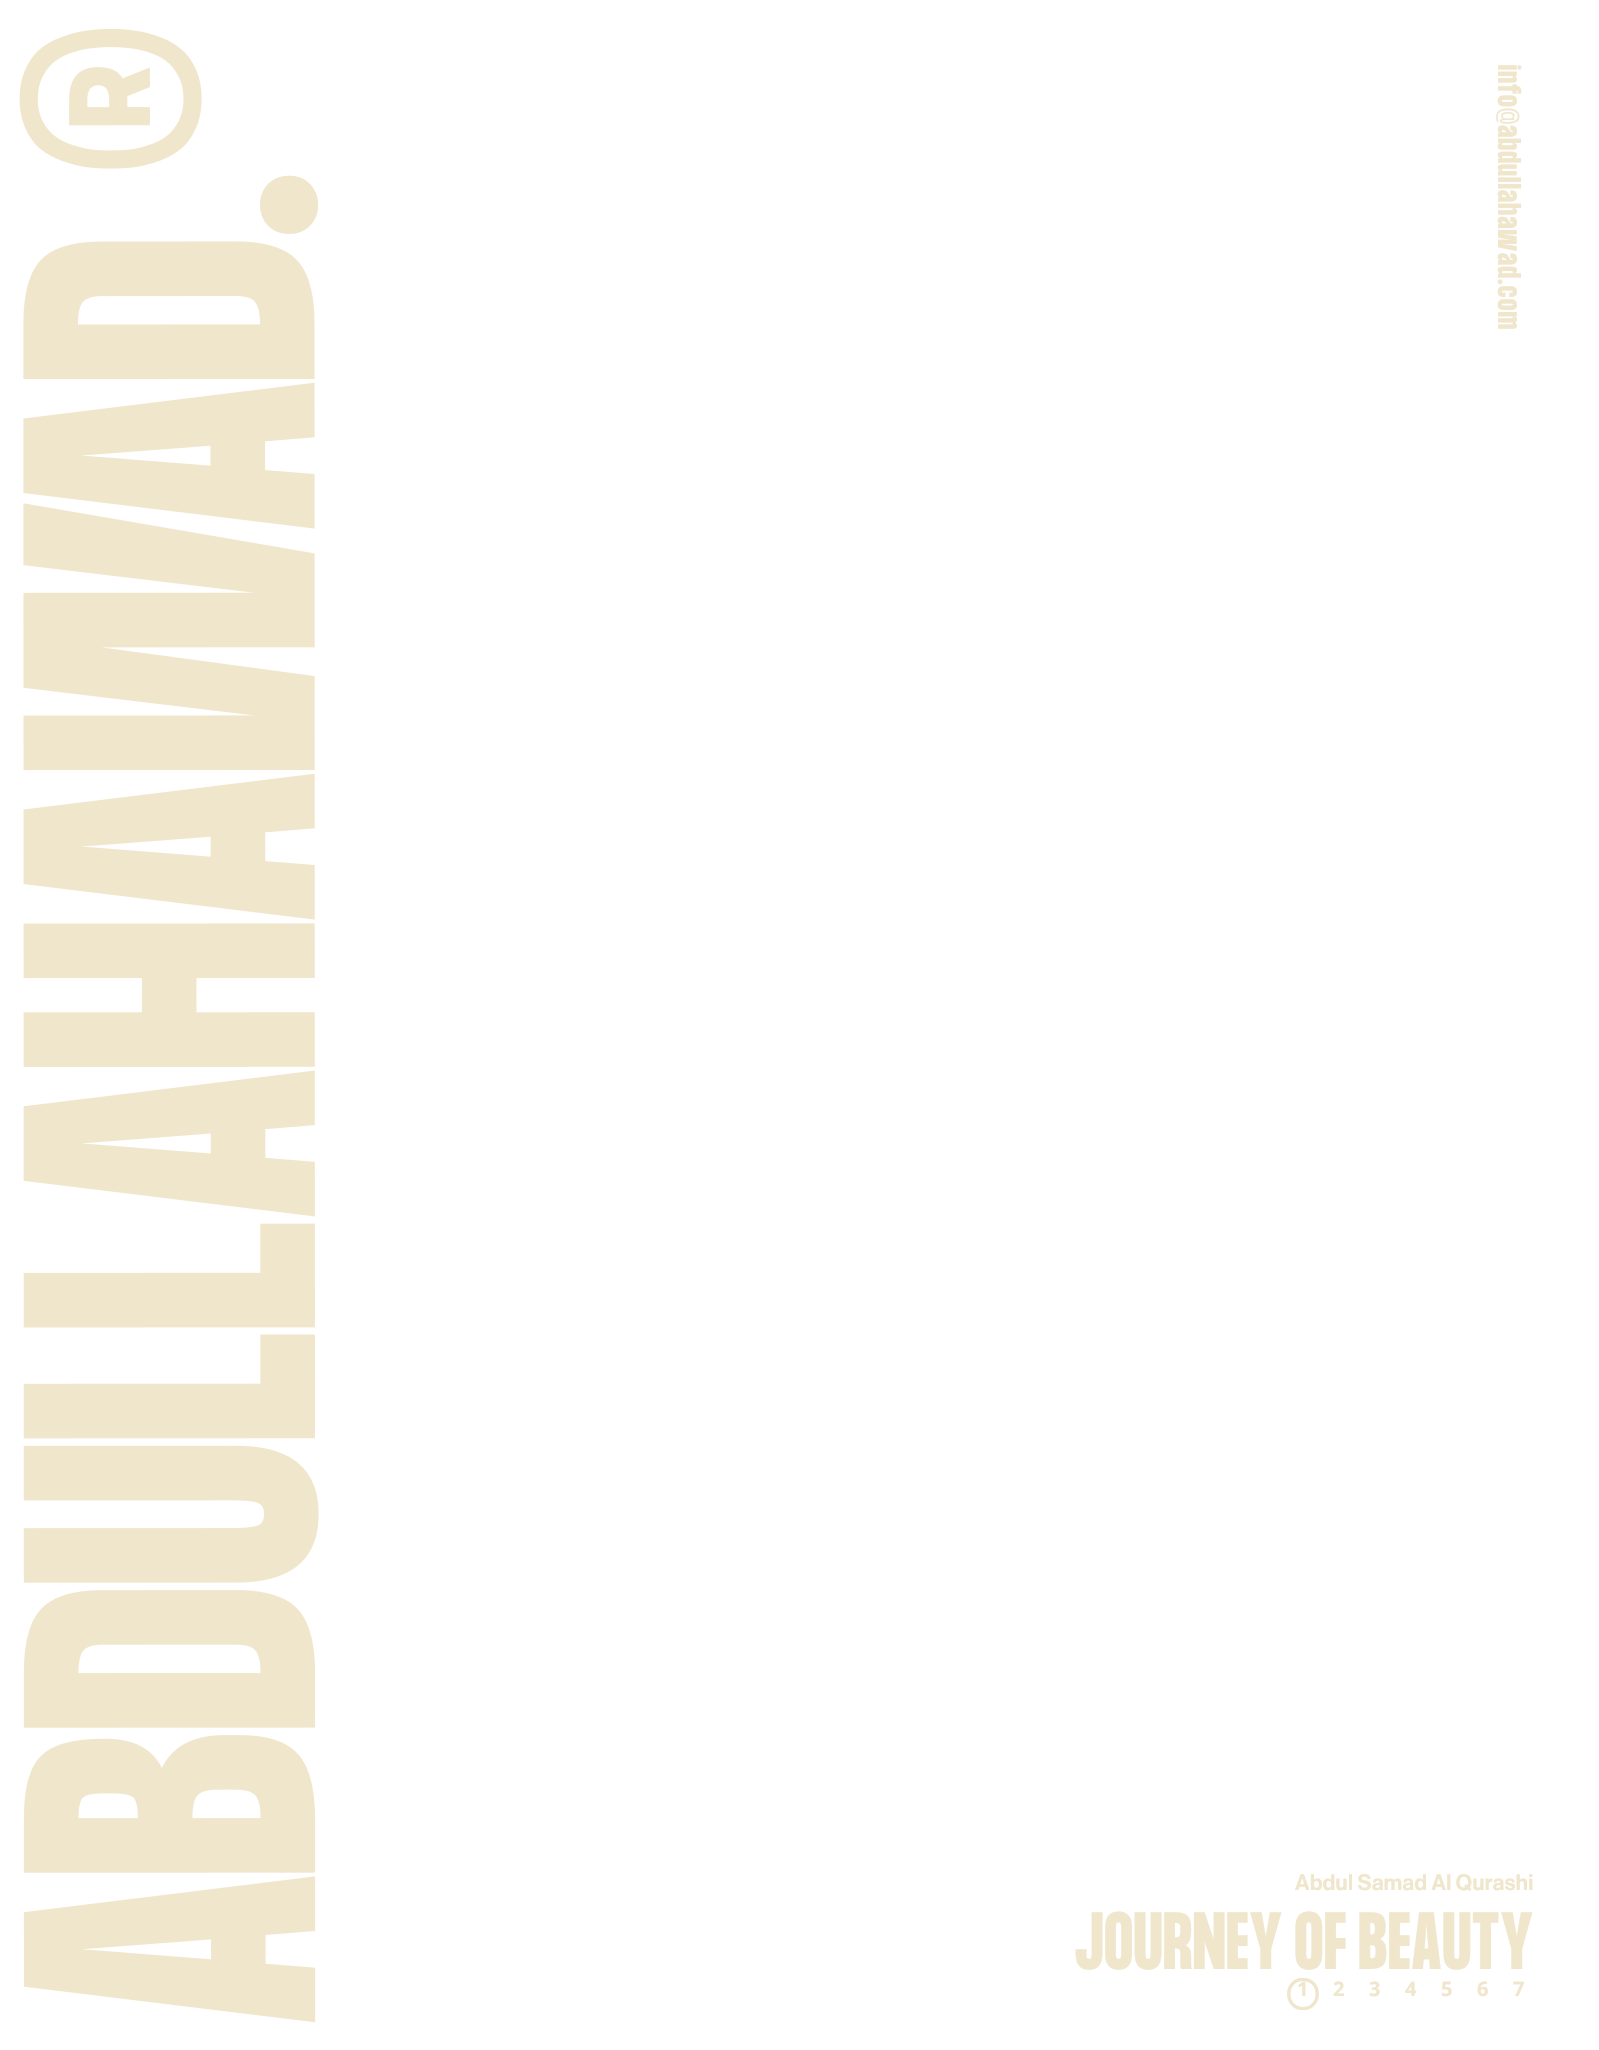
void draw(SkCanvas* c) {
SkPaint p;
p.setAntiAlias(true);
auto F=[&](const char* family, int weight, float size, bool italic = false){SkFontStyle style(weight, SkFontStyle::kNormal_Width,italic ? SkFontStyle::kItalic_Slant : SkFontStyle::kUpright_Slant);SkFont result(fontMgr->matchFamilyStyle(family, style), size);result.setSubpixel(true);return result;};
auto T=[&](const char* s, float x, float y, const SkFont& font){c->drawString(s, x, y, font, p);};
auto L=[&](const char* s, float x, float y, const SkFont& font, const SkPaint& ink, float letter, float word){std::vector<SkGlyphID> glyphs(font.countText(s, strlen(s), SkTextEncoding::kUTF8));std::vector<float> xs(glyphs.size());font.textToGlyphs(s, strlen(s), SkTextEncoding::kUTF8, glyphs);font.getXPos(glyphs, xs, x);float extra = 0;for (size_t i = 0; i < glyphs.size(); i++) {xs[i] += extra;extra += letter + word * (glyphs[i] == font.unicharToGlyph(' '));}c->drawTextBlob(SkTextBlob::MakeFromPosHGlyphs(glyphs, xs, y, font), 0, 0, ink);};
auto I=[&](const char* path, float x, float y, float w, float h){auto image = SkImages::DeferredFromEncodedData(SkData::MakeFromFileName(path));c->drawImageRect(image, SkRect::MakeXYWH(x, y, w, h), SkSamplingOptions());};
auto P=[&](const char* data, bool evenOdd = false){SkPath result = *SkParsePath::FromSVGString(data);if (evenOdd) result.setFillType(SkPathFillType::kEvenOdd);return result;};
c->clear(0xffffffff);
I("1.png",19,28,300,1995);
auto f1 = F("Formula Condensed",700,28.75);
p.setColor(0xfff0e6cc);
c->save();
c->rotate(90,1498,65);
L("info@abdullahawad.com",1498,65,f1,p,1.5,0);
c->restore();
auto f2 = F("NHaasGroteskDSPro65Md",500,22);
L("Abdul Samad Al Qurashi",1295,1890,f2,p,.4,0);
auto f3 = F("Formula Condensed",700,71);
L("JOURNEY OF BEAUTY",1075,1969,f3,p,1.4,0);
c->save();
c->clipRect(SkRect::MakeXYWH(1287,1978,32,32));
p.setStroke(true);
p.setStrokeWidth(3.2);
p.setStrokeCap(SkPaint::kRound_Cap);
p.setColor(0xfff7f1e3);
p.setPathEffect(SkDashPathEffect::Make({{90.48f,90.48f}}, 0));
c->drawPath(P("M1303 1979.5c19 0 19 29 0 29c-19 0-19-29 0-29"),p);
p.setPathEffect(nullptr);
p.setColor(0xfff0e6cc);
p.setPathEffect(SkDashPathEffect::Make({{90.48f,90.48f}}, 0));
c->drawPath(P("M1303 1979.5c19 0 19 29 0 29c-19 0-19-29 0-29"),p);
p.setPathEffect(nullptr);
c->restore();
auto f4 = F("Noto Sans",700,20);
p.setStroke(false);
T("1",1297,1996,f4);
T("2",1333,1996,f4);
T("3",1369,1996,f4);
T("4",1405,1996,f4);
T("5",1441,1996,f4);
T("6",1477,1996,f4);
T("7",1513,1996,f4);
}
